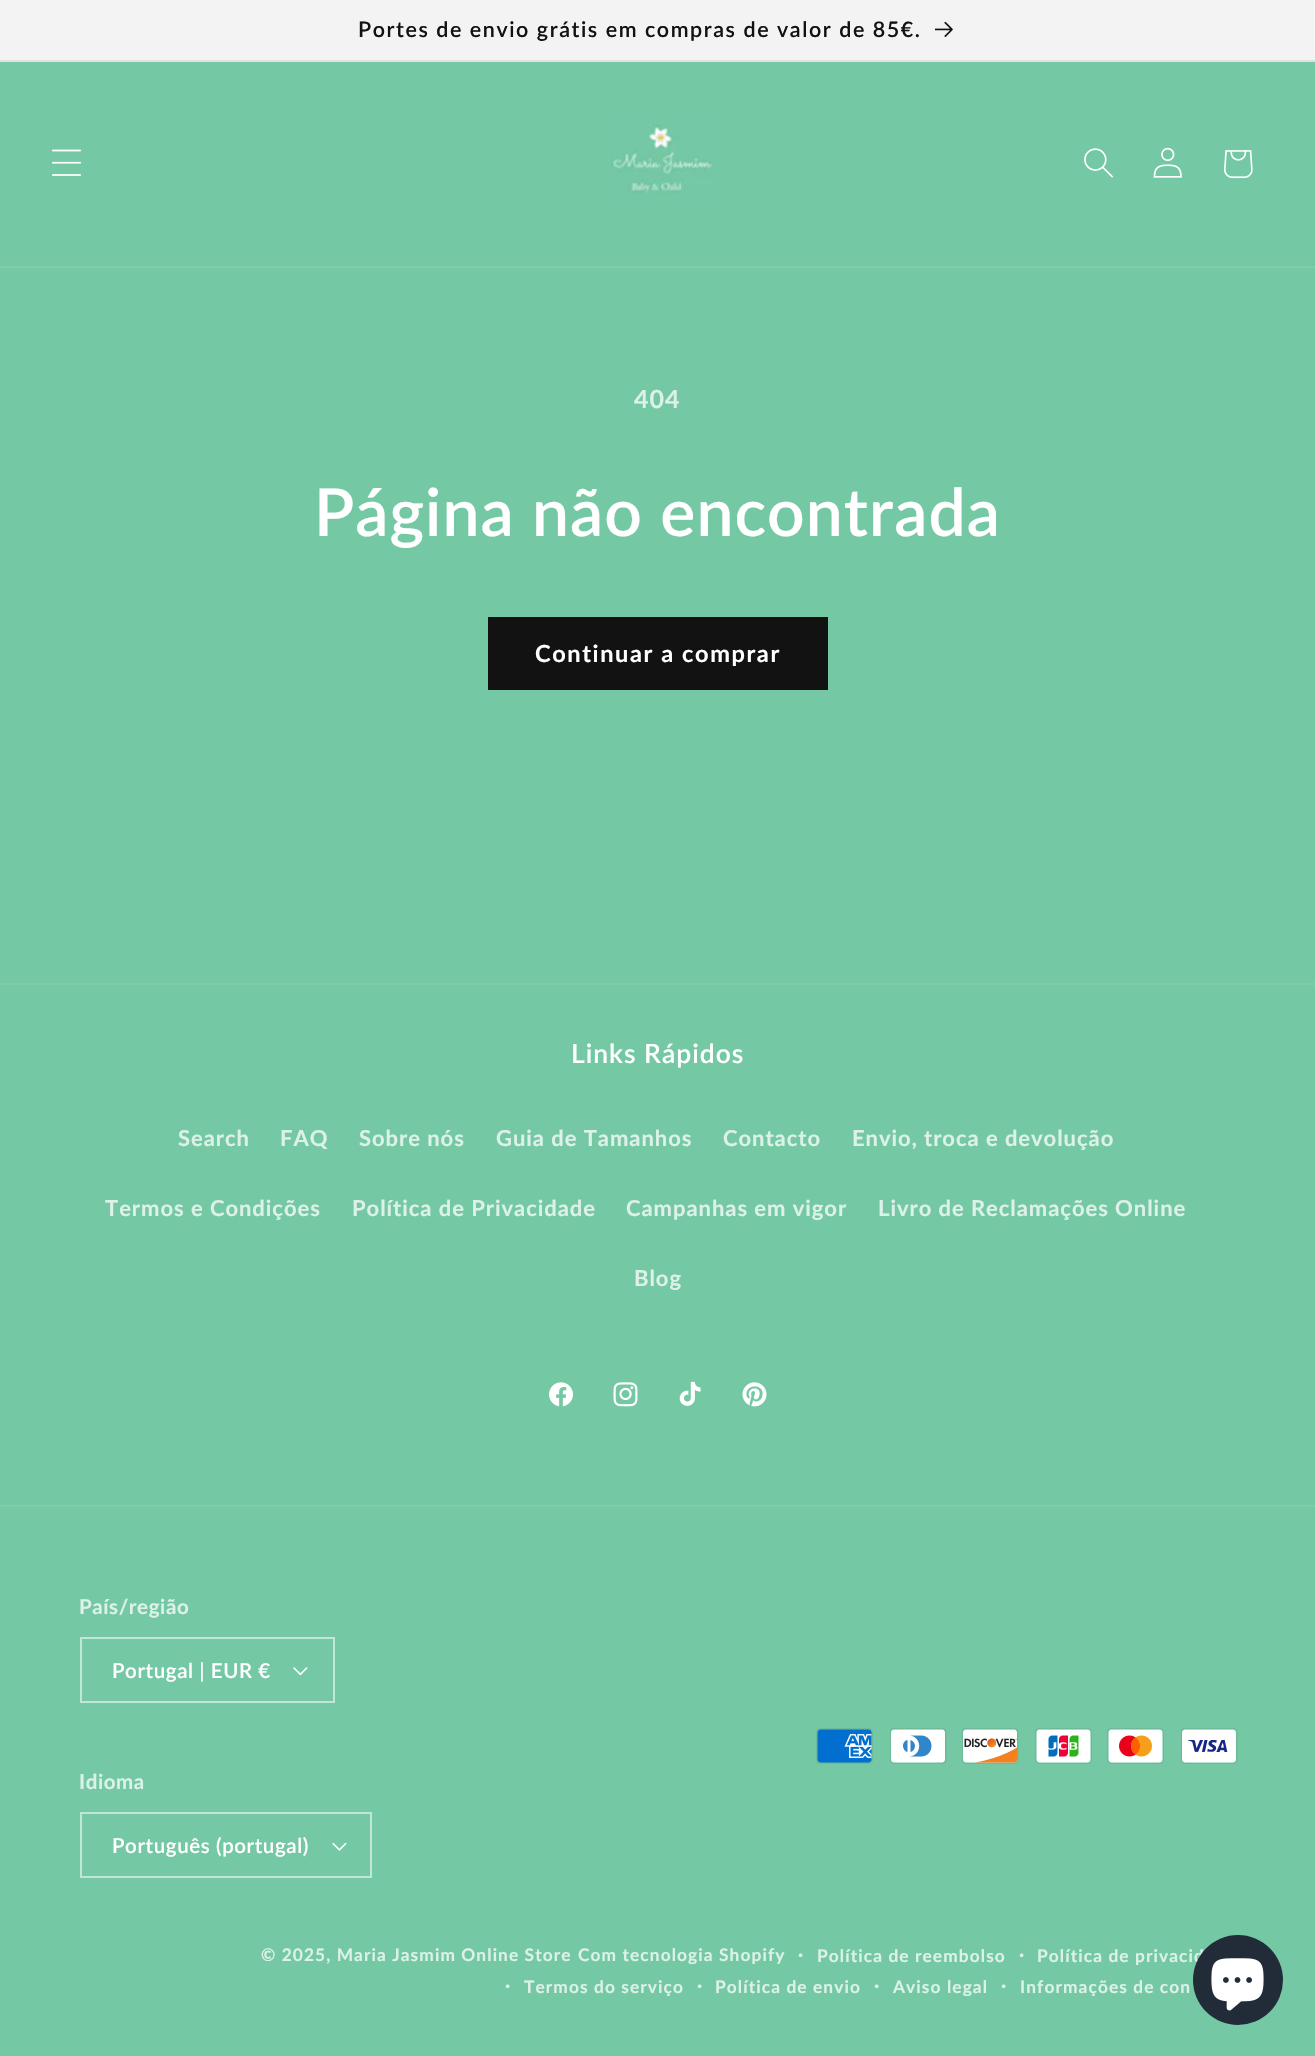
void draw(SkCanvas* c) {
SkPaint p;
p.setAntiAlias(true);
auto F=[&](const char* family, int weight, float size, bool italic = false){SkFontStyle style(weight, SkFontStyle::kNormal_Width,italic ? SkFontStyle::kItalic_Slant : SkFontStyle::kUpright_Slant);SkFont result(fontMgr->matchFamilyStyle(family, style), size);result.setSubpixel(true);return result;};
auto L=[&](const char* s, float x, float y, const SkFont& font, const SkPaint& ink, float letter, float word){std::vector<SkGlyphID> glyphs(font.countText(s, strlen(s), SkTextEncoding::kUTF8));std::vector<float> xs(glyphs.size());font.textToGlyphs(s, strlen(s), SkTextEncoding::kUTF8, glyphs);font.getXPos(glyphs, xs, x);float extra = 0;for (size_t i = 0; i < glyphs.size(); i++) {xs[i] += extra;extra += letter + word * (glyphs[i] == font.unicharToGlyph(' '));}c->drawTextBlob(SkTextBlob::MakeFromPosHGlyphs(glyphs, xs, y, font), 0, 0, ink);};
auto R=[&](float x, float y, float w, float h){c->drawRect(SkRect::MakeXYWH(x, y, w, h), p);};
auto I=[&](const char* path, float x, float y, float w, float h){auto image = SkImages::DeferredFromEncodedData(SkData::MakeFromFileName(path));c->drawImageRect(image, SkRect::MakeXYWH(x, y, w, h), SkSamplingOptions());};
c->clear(0xff74c8a4);
p.setColor(0xfff3f3f3);
R(0,0,1315,60);
p.setColor(0xffe1e1e1);
R(0,60,1315,2);
auto f1 = F("Lato",600,21.45);
p.setColor(0xff121212);
L("Portes de envio grátis em compras de valor de 85€.",358,37,f1,p,1.58,0);
I("1.png",935,21,18,16);
p.setColor(0xff7fccab);
R(0,266,1315,2);
I("2.png",51,149,31,27);
I("3.png",611,124,102,70);
I("4.png",1084,148,29,30);
I("5.png",1153,147,29,31);
I("6.png",1224,150,29,29);
auto f2 = F("Lato",700,25);
p.setColor(0xffdcf1e8);
L("404",634,408,f2,p,.95,0);
auto f3 = F("Lato",600,66);
p.setColor(0xffffffff);
L("Página não encontrada",314,536,f3,p,1,0);
p.setColor(0xff121212);
R(488,617,340,73);
auto f4 = F("Lato",700,23.6);
p.setColor(0xffffffff);
L("Continuar a comprar",535,662,f4,p,1.58,0);
p.setColor(0xff7fccab);
R(0,983,1315,2);
auto f5 = F("Lato",600,26.5);
p.setColor(0xffffffff);
L("Links Rápidos",571,1063,f5,p,1,0);
auto f6 = F("Lato",700,22);
p.setColor(0xffdcf1e8);
L("Search",178,1146,f6,p,.95,0);
L("FAQ",280,1146,f6,p,.95,0);
L("Sobre nós",359,1146,f6,p,.95,0);
L("Guia de Tamanhos",496,1146,f6,p,.95,0);
L("Contacto",723,1146,f6,p,.95,0);
L("Envio, troca e devolução",852,1146,f6,p,.95,0);
L("Termos e Condições",105,1216,f6,p,.95,0);
L("Política de Privacidade",352,1216,f6,p,.95,0);
L("Campanhas em vigor",626,1216,f6,p,.95,0);
L("Livro de Reclamações Online",878,1216,f6,p,.95,0);
L("Blog",634,1286,f6,p,.95,0);
I("7.png",549,1382,24,25);
I("8.png",613,1382,25,25);
I("9.png",679,1381,22,25);
I("10.png",742,1382,25,25);
p.setColor(0xff7fccab);
R(0,1505,1315,2);
auto f7 = F("Lato",700,20.5);
p.setColor(0xffdcf1e8);
L("País/região",79,1614,f7,p,.6,0);
I("11.png",293,1667,15,9);
p.setStroke(true);
p.setStrokeWidth(2);
p.setColor(0xffc0e6d6);
c->drawRect(SkRect::MakeXYWH(81,1638,253,64),p);
auto f8 = F("Lato",600,20.5);
p.setStroke(false);
p.setColor(0xffffffff);
L("Portugal | EUR €",112,1678,f8,p,.6,0);
p.setColor(0xffdcf1e8);
L("Idioma",79,1789,f7,p,.6,0);
I("12.png",332,1842,15,9);
p.setStroke(true);
p.setColor(0xffc0e6d6);
c->drawRect(SkRect::MakeXYWH(81,1813,290,64),p);
p.setStroke(false);
p.setColor(0xffffffff);
L("Português (portugal)",112,1853,f8,p,.6,0);
I("13.png",816,1728,57,36);
I("14.png",890,1728,57,36);
I("15.png",962,1728,57,36);
I("16.png",1035,1728,57,36);
I("17.png",1107,1728,57,36);
I("18.png",1181,1728,57,36);
auto f9 = F("Lato",700,17.3);
p.setColor(0xffdcf1e8);
L("© 2025, Maria Jasmim Online Store",261,1961,f9,p,1.1,0);
L("Com tecnologia Shopify",578,1961,f9,p,1.1,0);
auto f10 = F("Lato",700,19);
L("·",798,1961,f10,p,1.1,0);
L("Política de reembolso",817,1962,f9,p,1.1,0);
L("·",1019,1961,f10,p,1.1,0);
L("Política de privacid",1037,1962,f9,p,1.1,0);
L("·",505,1992,f10,p,1.1,0);
L("Termos do serviço",524,1993,f9,p,1.1,0);
L("·",697,1992,f10,p,1.1,0);
L("Política de envio",715,1993,f9,p,1.1,0);
L("·",874,1992,f10,p,1.1,0);
L("Aviso legal",893,1993,f9,p,1.1,0);
L("·",1001,1992,f10,p,1.1,0);
L("Informações de con",1020,1993,f9,p,1.1,0);
p.setColor(0xff222c39);
c->drawCircle(1238,1980,45,p);
I("19.png",1211,1958,53,53);
}
